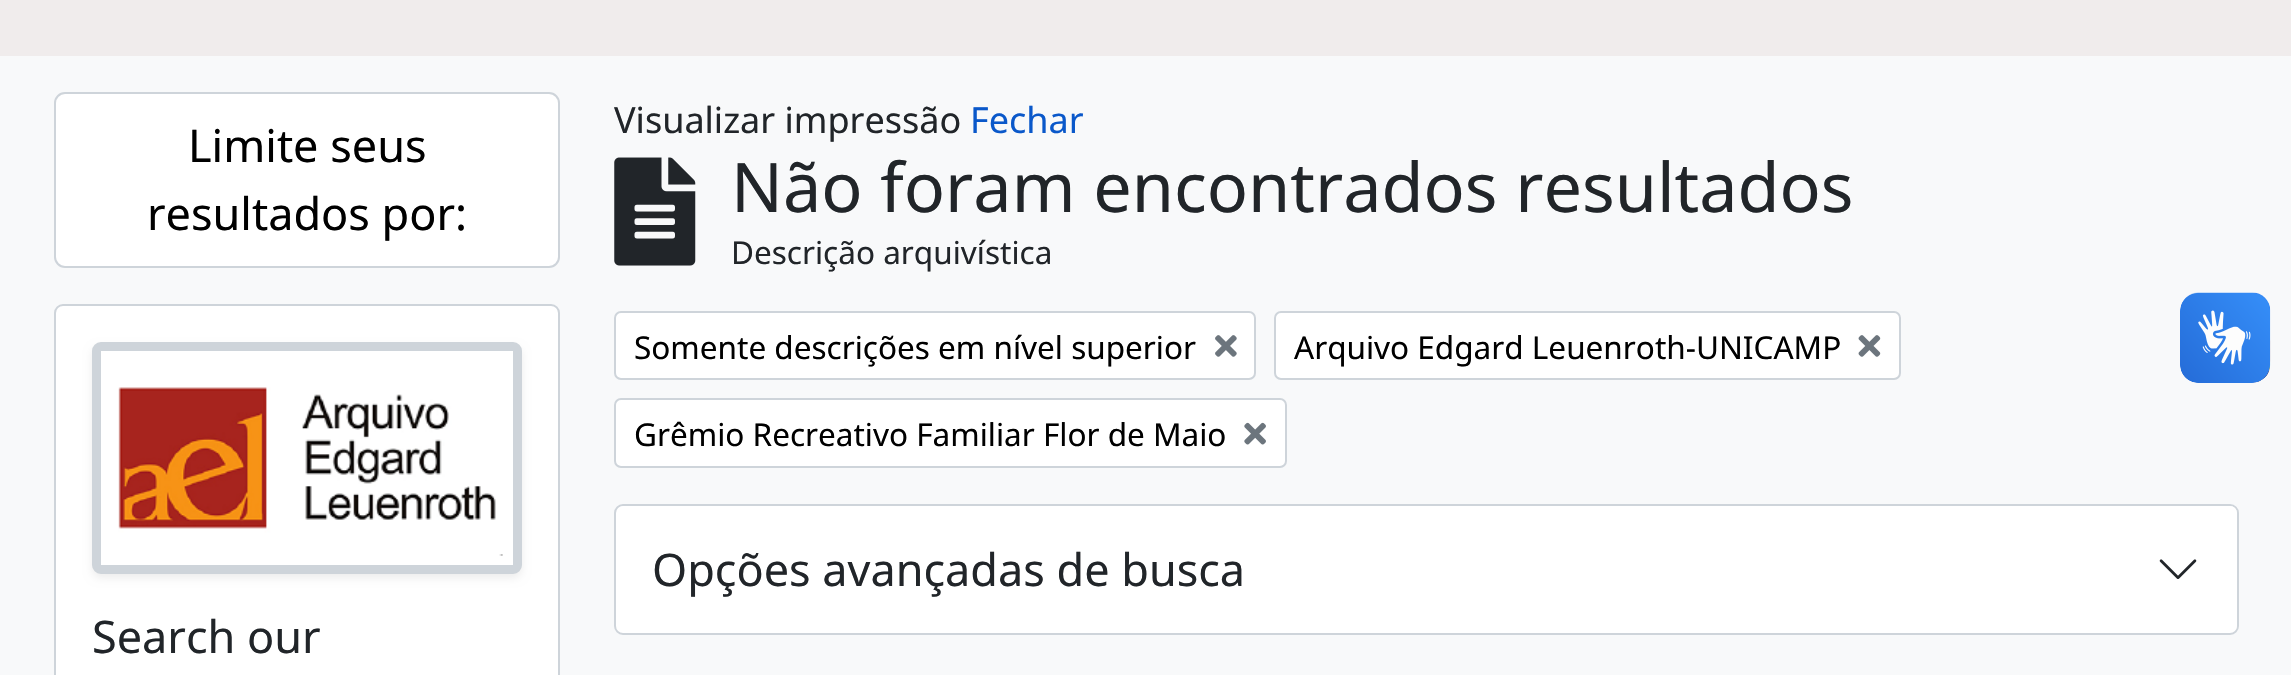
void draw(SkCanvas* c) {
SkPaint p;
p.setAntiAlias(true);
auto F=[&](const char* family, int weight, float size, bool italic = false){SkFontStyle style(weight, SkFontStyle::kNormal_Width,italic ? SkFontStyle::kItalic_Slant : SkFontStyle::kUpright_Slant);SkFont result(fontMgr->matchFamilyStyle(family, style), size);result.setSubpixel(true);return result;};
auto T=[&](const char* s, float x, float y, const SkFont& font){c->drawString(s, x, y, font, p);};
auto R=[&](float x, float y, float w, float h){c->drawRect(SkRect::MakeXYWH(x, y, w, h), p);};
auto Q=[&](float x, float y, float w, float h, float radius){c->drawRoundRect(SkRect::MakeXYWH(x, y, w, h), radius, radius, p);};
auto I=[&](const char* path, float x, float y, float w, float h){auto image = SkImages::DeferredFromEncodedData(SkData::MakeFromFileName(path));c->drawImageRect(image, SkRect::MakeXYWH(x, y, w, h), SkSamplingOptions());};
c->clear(0xfff8f9fa);
p.setColor(0xfff0ecec);
R(0,0,2291,56);
p.setColor(0xffffffff);
c->drawRoundRect(SkRect::MakeXYWH(55,93,504,174),10,10,p);
p.setStroke(true);
p.setStrokeWidth(2);
p.setColor(0xffced4da);
c->drawRoundRect(SkRect::MakeXYWH(55,93,504,174),10,10,p);
auto f1 = F("Noto Sans",400,45);
p.setStroke(false);
p.setColor(0xff000000);
T("Limite seus",188,162,f1);
T("resultados por:",147,230,f1);
p.setColor(0xffffffff);
c->drawRoundRect(SkRect::MakeXYWH(55,305,504,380),8,8,p);
p.setStroke(true);
p.setColor(0xffced4da);
c->drawRoundRect(SkRect::MakeXYWH(55,305,504,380),8,8,p);
p.setStroke(false);
p.setColor(0x12000000);
p.setMaskFilter(SkMaskFilter::MakeBlur(kNormal_SkBlurStyle, 4.5));
c->drawRoundRect(SkRect::MakeXYWH(92,347,430,231),9,9,p);
p.setMaskFilter(nullptr);
p.setColor(0xffffffff);
c->drawRoundRect(SkRect::MakeXYWH(96.5,346.5,421,223),4.5,4.5,p);
p.setStroke(true);
p.setStrokeWidth(9);
p.setColor(0xffced4da);
c->drawRoundRect(SkRect::MakeXYWH(96.5,346.5,421,223),4.5,4.5,p);
I("1.png",118,387,385,169);
p.setStroke(false);
p.setColor(0xff212529);
T("Search our",92,653,f1);
auto f2 = F("Noto Sans",400,36);
T("Visualizar impressão",614,133,f2);
p.setColor(0xff0a58ca);
T("Fechar",970,133,f2);
I("2.png",614,157,82,109);
auto f3 = F("Noto Sans",400,68.3);
p.setColor(0xff212529);
T("Não foram encontrados resultados",731,212,f3);
auto f4 = F("Noto Sans",400,31.5);
T("Descrição arquivística",731,264,f4);
p.setColor(0xffffffff);
c->drawRoundRect(SkRect::MakeXYWH(615,312,640,67),6,6,p);
p.setStroke(true);
p.setStrokeWidth(2);
p.setColor(0xffced4da);
c->drawRoundRect(SkRect::MakeXYWH(615,312,640,67),6,6,p);
p.setStroke(false);
p.setColor(0xff000000);
T("Somente descrições em nível superior",634,359,f4);
I("3.png",1215,335,22,22);
p.setColor(0xffffffff);
c->drawRoundRect(SkRect::MakeXYWH(1275,312,625,67),6,6,p);
p.setStroke(true);
p.setColor(0xffced4da);
c->drawRoundRect(SkRect::MakeXYWH(1275,312,625,67),6,6,p);
p.setStroke(false);
p.setColor(0xff000000);
T("Arquivo Edgard Leuenroth-UNICAMP",1294,359,f4);
I("4.png",1858,335,23,22);
p.setColor(0xffffffff);
c->drawRoundRect(SkRect::MakeXYWH(615,399,671,68),6,6,p);
p.setStroke(true);
p.setColor(0xffced4da);
c->drawRoundRect(SkRect::MakeXYWH(615,399,671,68),6,6,p);
p.setStroke(false);
p.setColor(0xff000000);
T("Grêmio Recreativo Familiar Flor de Maio",634,446,f4);
I("5.png",1244,422,22,23);
p.setColor(0xffffffff);
c->drawRoundRect(SkRect::MakeXYWH(615,505,1623,129),8,8,p);
p.setStroke(true);
p.setColor(0xffced4da);
c->drawRoundRect(SkRect::MakeXYWH(615,505,1623,129),8,8,p);
p.setStroke(false);
p.setColor(0xffffffff);
Q(617,506,1620,126,7);
p.setColor(0xff212529);
T("Opções avançadas de busca",652,586,f1);
I("6.png",2159,559,38,20);
I("7.png",2180,292,91,91);
I("8.png",2180,293,90,90);
}
